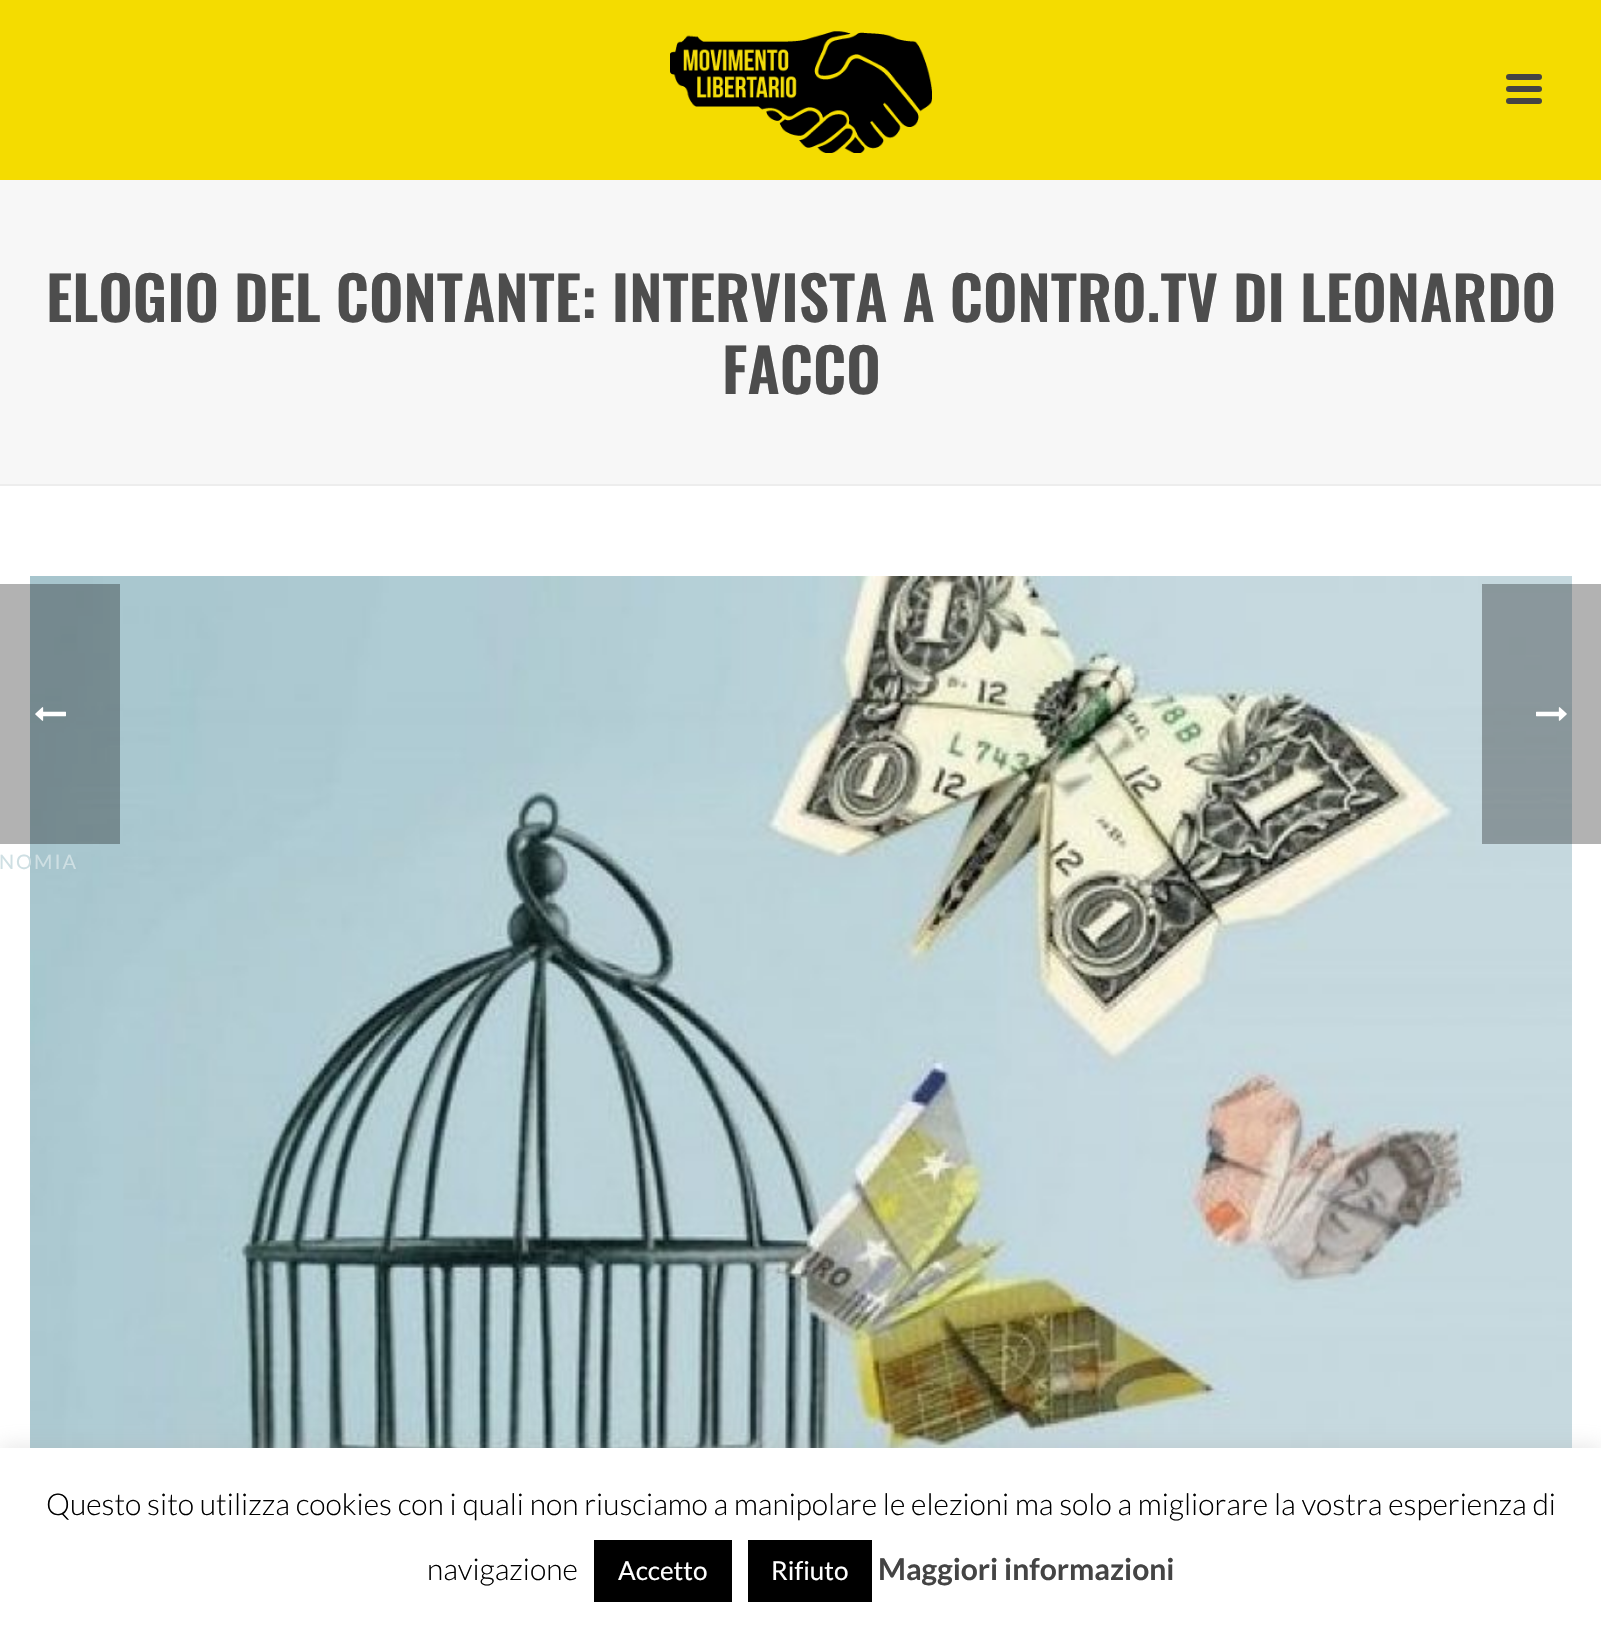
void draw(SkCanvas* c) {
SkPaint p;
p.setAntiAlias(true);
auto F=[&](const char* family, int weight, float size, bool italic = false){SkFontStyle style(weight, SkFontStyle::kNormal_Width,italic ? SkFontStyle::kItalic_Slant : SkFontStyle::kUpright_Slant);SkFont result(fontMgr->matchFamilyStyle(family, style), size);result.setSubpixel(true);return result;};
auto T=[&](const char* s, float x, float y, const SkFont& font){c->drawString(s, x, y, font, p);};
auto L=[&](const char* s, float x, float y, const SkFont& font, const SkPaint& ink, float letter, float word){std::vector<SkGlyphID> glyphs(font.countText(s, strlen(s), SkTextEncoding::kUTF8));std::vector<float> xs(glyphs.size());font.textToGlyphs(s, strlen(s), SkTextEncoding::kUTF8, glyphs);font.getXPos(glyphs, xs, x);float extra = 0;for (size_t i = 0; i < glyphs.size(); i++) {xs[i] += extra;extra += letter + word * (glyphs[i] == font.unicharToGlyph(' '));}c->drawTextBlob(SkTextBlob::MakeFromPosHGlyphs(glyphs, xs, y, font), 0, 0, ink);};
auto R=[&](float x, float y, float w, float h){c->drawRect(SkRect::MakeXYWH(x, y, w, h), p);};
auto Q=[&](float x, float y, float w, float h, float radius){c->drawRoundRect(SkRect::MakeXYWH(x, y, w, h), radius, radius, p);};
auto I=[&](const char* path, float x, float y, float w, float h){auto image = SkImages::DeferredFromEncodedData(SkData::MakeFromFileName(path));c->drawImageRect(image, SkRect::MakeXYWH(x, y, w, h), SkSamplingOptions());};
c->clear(0xffffffff);
p.setColor(0xfff7f7f7);
R(0,180,1601,304);
p.setColor(0xffededed);
R(0,484,1601,2);
p.setColor(0xfff4dc00);
R(0,0,1601,180);
I("1.png",670,31,262,122);
p.setColor(0xff444444);
Q(1506,74,36,6,3);
Q(1506,86,36,6,3);
Q(1506,98,36,6,3);
auto f1 = F("Oswald",600,60);
p.setColor(0xff4d4d4d);
T("ELOGIO DEL CONTANTE: INTERVISTA A CONTRO.TV DI LEONARDO",46,322,f1);
T("FACCO",722,394,f1);
I("2.png",30,576,1542,872);
p.setColor(0x4d000000);
R(1482,584,119,260);
I("3.png",1536,707,31,14);
R(0,584,120,260);
I("4.png",35,707,31,14);
auto f2 = F("Lato",400,20);
p.setColor(0xffcedfe3);
L("NOMIA",-1,869,f2,p,2,0);
p.setColor(0x4dacabab);
p.setMaskFilter(SkMaskFilter::MakeBlur(kNormal_SkBlurStyle, 10));
c->drawRect(SkRect::MakeXYWH(0,1446,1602,178),p);
p.setMaskFilter(nullptr);
p.setColor(0xffffffff);
R(0,1448,1601,178);
auto f3 = F("Lato",300,30);
p.setColor(0xff000000);
T("Questo sito utilizza cookies con i quali non riusciamo a manipolare le elezioni ma solo a migliorare la vostra esperienza di",46,1515,f3);
T("navigazione",427,1580,f3);
R(594,1540,138,62);
auto f4 = F("Lato",400,26);
p.setColor(0xffffffff);
T("Accetto",618,1580,f4);
p.setColor(0xff000000);
R(748,1540,124,62);
p.setColor(0xffffffff);
T("Rifiuto",771,1580,f4);
auto f5 = F("Lato",700,30);
p.setColor(0xff444444);
T("Maggiori informazioni",878,1580,f5);
}
